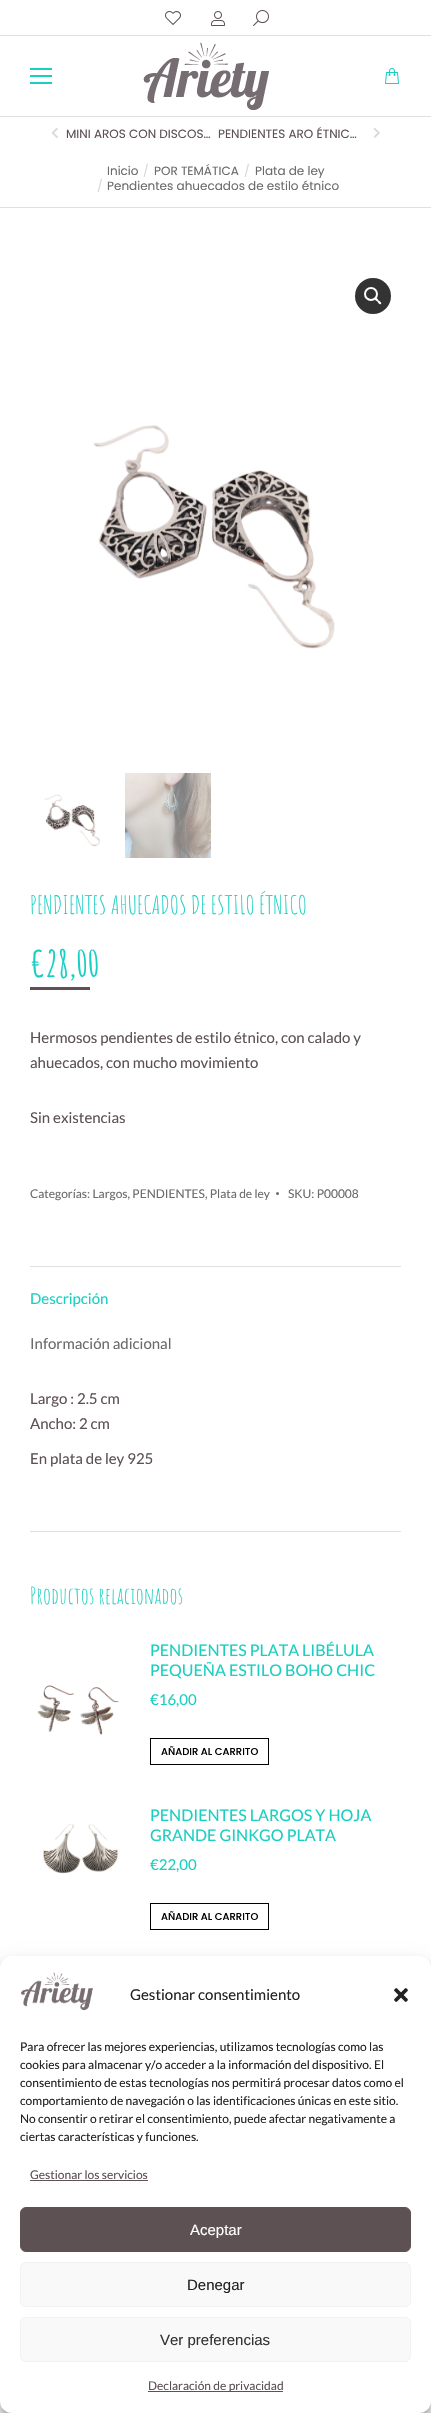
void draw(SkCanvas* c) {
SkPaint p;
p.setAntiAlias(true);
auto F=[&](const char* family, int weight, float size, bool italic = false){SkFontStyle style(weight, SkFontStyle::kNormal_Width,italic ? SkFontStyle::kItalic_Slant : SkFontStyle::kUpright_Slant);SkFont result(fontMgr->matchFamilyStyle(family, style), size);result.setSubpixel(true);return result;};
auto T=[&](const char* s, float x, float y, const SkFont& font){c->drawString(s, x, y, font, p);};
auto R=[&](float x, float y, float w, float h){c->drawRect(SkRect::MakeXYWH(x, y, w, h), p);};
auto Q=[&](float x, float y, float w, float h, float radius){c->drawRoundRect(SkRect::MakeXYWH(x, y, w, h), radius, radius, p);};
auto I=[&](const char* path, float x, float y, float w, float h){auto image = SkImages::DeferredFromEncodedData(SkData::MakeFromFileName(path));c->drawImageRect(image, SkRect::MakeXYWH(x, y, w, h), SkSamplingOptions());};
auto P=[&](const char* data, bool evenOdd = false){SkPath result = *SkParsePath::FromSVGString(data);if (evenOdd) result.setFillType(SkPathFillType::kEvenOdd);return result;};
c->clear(0xffffffff);
p.setColor(0xffe0e0e0);
R(0,116,431,1);
I("1.png",165,11,16,14);
I("2.png",211,11,14,15);
I("3.png",253,10,16,16);
R(0,35,431,1);
p.setColor(0xff19cfc2);
R(30,68,22,2);
R(30,75,22,2);
R(30,82,22,2);
I("4.png",143,42,126,68);
I("5.png",385,68,14,16);
p.setColor(0xffe0e0e0);
R(0,207,431,1);
I("6.png",51,128,7,10);
auto f1 = F("Poppins",400,12);
p.setColor(0xff5d5153);
T("MINI AROS CON DISCOS…",66,138,f1);
T("PENDIENTES ARO ÉTNIC…",218,138,f1);
I("7.png",373,128,7,10);
p.setColor(0xff6b6b6b);
T("Inicio",107,175,f1);
p.setColor(0xffd9d9d9);
T("/",143,175,f1);
p.setColor(0xff6b6b6b);
T("POR TEMÁTICA",154,175,f1);
p.setColor(0xffd9d9d9);
T("/",244,175,f1);
p.setColor(0xff6b6b6b);
T("Plata de ley",255,175,f1);
p.setColor(0xffd9d9d9);
T("/",97,190,f1);
p.setColor(0xff6b6b6b);
T("Pendientes ahuecados de estilo étnico",107,190,f1);
p.setColor(0xff333333);
c->drawCircle(373,296,18,p);
p.setStroke(true);
p.setStrokeWidth(2);
p.setColor(0xffffffff);
c->drawCircle(371,294,6,p);
p.setStroke(false);
c->drawPath(P("M375 298c1.5-1 3 1.5 3.5 2.5c1 .5 3.5 2 2.5 3.5c-1.5 1-3-1.5-3.5-2.5c-1-.5-3.5-2-2.5-3.5z"),p);
I("8.png",93,425,242,224);
I("9.png",44,794,56,53);
I("10.png",125,773,86,85);
auto f2 = F("Amatic SC",400,25);
p.setColor(0xff19cfc2);
T("PENDIENTES AHUECADOS DE ESTILO ÉTNICO",30,914,f2);
auto f3 = F("Amatic SC",700,36);
T("€28,00",30,977,f3);
p.setColor(0xff5d5153);
R(30,987,60,3);
auto f4 = F("Lato",400,15);
T("Hermosos pendientes de estilo étnico, con calado y",30,1043,f4);
T("ahuecados, con mucho movimiento",30,1068,f4);
T("Sin existencias",30,1123,f4);
auto f5 = F("Lato",400,12);
p.setColor(0xff6b6b6b);
T("Categorías: Largos, PENDIENTES, Plata de ley",30,1198,f5);
c->drawCircle(277.5,1193.5,1.5,p);
T("SKU: P00008",288,1198,f5);
p.setColor(0xffe0e0e0);
R(30,1266,371,1);
p.setColor(0xff19cfc2);
T("Descripción",30,1304,f4);
p.setColor(0xff6b6b6b);
T("Información adicional",30,1349,f4);
p.setColor(0xff5d5153);
T("Largo : 2.5 cm",30,1404,f4);
T("Ancho: 2 cm",30,1429,f4);
T("En plata de ley 925",30,1464,f4);
p.setColor(0xffe0e0e0);
R(30,1531,371,1);
auto f6 = F("Amatic SC",400,23);
p.setColor(0xff19cfc2);
T("Productos relacionados",30,1604,f6);
I("11.png",37,1685,82,50);
auto f7 = F("Lato",400,16);
T("PENDIENTES PLATA LIBÉLULA",150,1656,f7);
T("PEQUEÑA ESTILO BOHO CHIC",150,1676,f7);
T("€16,00",150,1705,f4);
p.setStroke(true);
p.setStrokeWidth(1);
p.setColor(0xff000000);
c->drawRect(SkRect::MakeXYWH(150.5,1738.5,118,26),p);
auto f8 = F("Poppins",500,10);
p.setStroke(false);
T("AÑADIR AL CARRITO",161,1755,f8);
I("12.png",43,1824,76,50);
p.setColor(0xff19cfc2);
T("PENDIENTES LARGOS Y HOJA",150,1821,f7);
T("GRANDE GINKGO PLATA",150,1841,f7);
T("€22,00",150,1870,f4);
p.setStroke(true);
p.setColor(0xff000000);
c->drawRect(SkRect::MakeXYWH(150.5,1903.5,118,26),p);
p.setStroke(false);
T("AÑADIR AL CARRITO",161,1920,f8);
p.setColor(0x3b000000);
p.setMaskFilter(SkMaskFilter::MakeBlur(kNormal_SkBlurStyle, 3));
c->drawRoundRect(SkRect::MakeXYWH(0,1962,431,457),12,12,p);
p.setMaskFilter(nullptr);
p.setColor(0x30000000);
p.setMaskFilter(SkMaskFilter::MakeBlur(kNormal_SkBlurStyle, 10));
c->drawRoundRect(SkRect::MakeXYWH(0,1966,431,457),12,12,p);
p.setMaskFilter(nullptr);
p.setColor(0xffffffff);
Q(0,1956,431,457,12);
I("13.png",21,1972,72,39);
p.setColor(0xff222222);
T("Gestionar consentimiento",130,2000,f4);
I("14.png",394,1988,14,14);
T("Para ofrecer las mejores experiencias, utilizamos tecnologías como las",20,2051,f5);
T("cookies para almacenar y/o acceder a la información del dispositivo. El",20,2069,f5);
T("consentimiento de estas tecnologías nos permitirá procesar datos como el",20,2087,f5);
T("comportamiento de navegación o las identificaciones únicas en este sitio.",20,2105,f5);
T("No consentir o retirar el consentimiento, puede afectar negativamente a",20,2123,f5);
T("ciertas características y funciones.",20,2141,f5);
p.setColor(0xff5d5153);
T("Gestionar los servicios",30,2179,f5);
R(30,2180,118,1);
c->drawRoundRect(SkRect::MakeXYWH(20.5,2207.5,390,44),5.5,5.5,p);
p.setStroke(true);
c->drawRoundRect(SkRect::MakeXYWH(20.5,2207.5,390,44),5.5,5.5,p);
auto f9 = F("Liberation Sans",400,15);
p.setStroke(false);
p.setColor(0xffffffff);
T("Aceptar",190,2235,f9);
p.setColor(0xfff9f9f9);
c->drawRoundRect(SkRect::MakeXYWH(20.5,2262.5,390,44),5.5,5.5,p);
p.setStroke(true);
p.setColor(0xfff2f2f2);
c->drawRoundRect(SkRect::MakeXYWH(20.5,2262.5,390,44),5.5,5.5,p);
p.setStroke(false);
p.setColor(0xff222222);
T("Denegar",187,2290,f9);
p.setColor(0xfff9f9f9);
c->drawRoundRect(SkRect::MakeXYWH(20.5,2317.5,390,44),5.5,5.5,p);
p.setStroke(true);
p.setColor(0xfff2f2f2);
c->drawRoundRect(SkRect::MakeXYWH(20.5,2317.5,390,44),5.5,5.5,p);
p.setStroke(false);
p.setColor(0xff333333);
T("Ver preferencias",160,2345,f9);
p.setColor(0xff5d5153);
R(148,2391,135,1);
T("Declaración de privacidad",148,2390,f5);
}
